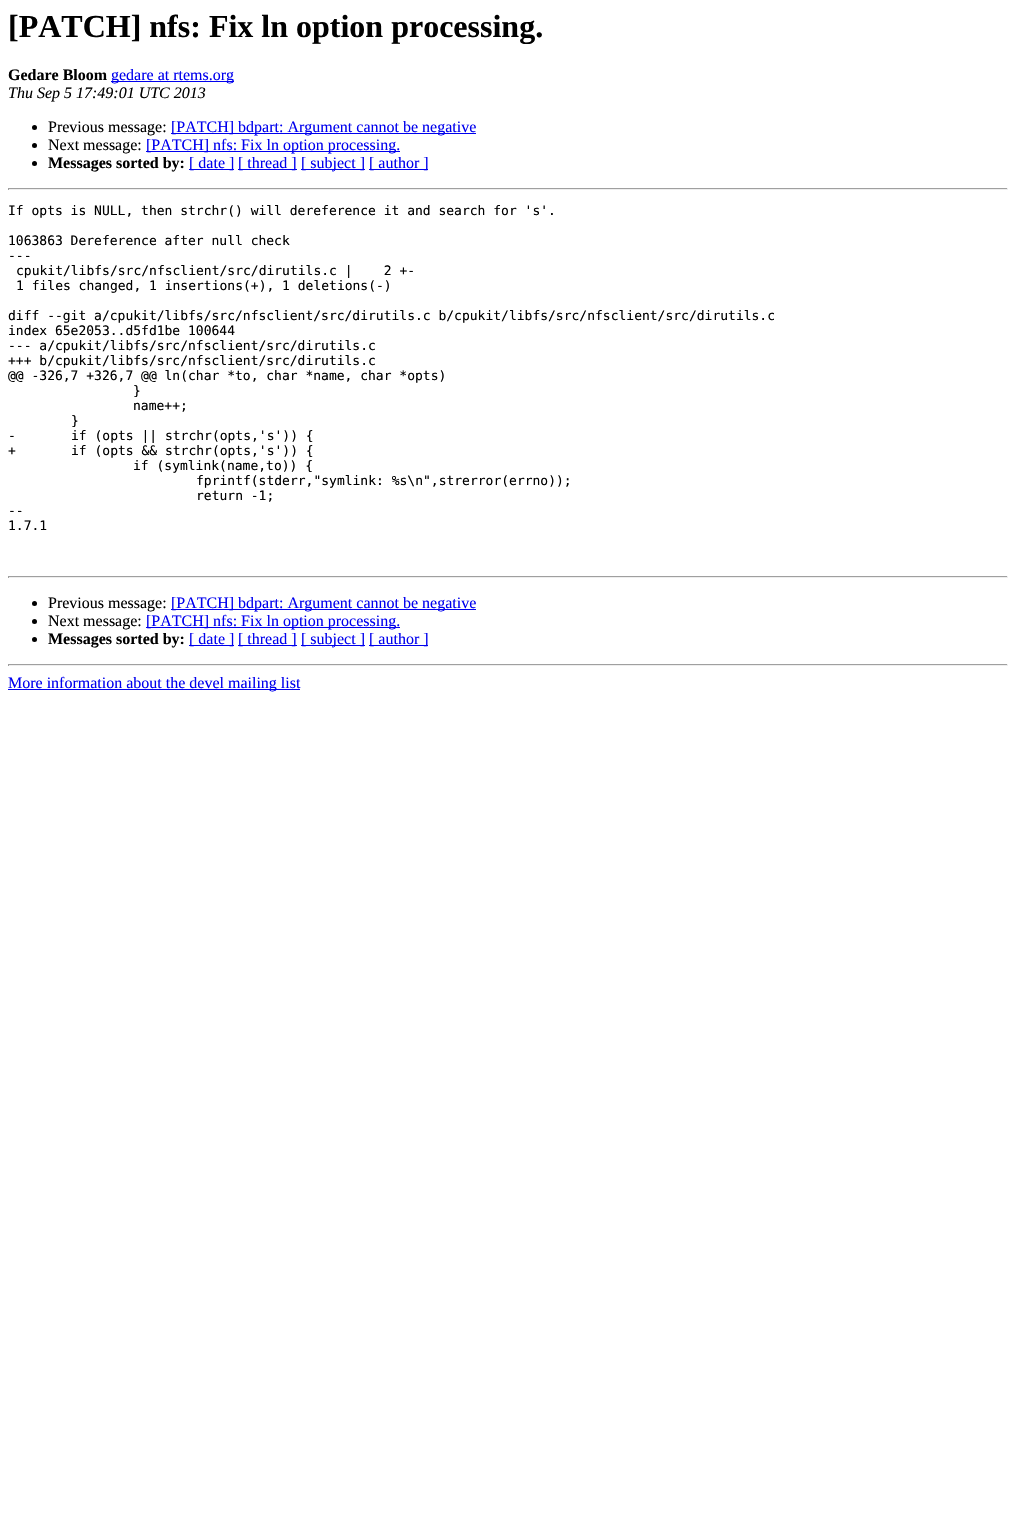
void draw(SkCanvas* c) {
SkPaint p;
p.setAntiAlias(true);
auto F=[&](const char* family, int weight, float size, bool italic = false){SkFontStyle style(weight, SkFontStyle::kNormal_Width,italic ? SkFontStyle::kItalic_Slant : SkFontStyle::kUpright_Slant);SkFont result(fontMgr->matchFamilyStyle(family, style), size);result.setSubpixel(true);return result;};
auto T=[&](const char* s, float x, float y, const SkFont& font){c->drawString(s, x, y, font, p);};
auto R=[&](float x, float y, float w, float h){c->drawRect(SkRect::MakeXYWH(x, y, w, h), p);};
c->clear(0xffffffff);
auto f1 = F("Liberation Serif",700,32);
p.setColor(0xff000000);
T("[PATCH] nfs: Fix ln option processing.",8,37,f1);
auto f2 = F("Liberation Serif",700,16);
T("Gedare Bloom",8,80,f2);
p.setColor(0xff0000ee);
R(111,81,123,1);
auto f3 = F("Liberation Serif",400,16);
T("gedare at rtems.org",111,80,f3);
auto f4 = F("Liberation Serif",400,16,true);
p.setColor(0xff000000);
T("Thu Sep 5 17:49:01 UTC 2013",8,98,f4);
c->drawCircle(34.5,127.5,2.5,p);
T("Previous message:",48,132,f3);
p.setColor(0xff0000ee);
R(171,133,305,1);
T("[PATCH] bdpart: Argument cannot be negative",171,132,f3);
p.setColor(0xff000000);
c->drawCircle(34.5,145.5,2.5,p);
T("Next message:",48,150,f3);
p.setColor(0xff0000ee);
R(146,151,254,1);
T("[PATCH] nfs: Fix ln option processing.",146,150,f3);
p.setColor(0xff000000);
c->drawCircle(34.5,163.5,2.5,p);
T("Messages sorted by:",48,168,f2);
p.setColor(0xff0000ee);
R(189,169,45,1);
T("[ date ]",189,168,f3);
R(238,169,59,1);
T("[ thread ]",238,168,f3);
R(301,169,64,1);
T("[ subject ]",301,168,f3);
R(369,169,59,1);
T("[ author ]",369,168,f3);
p.setColor(0xff9f9f9f);
R(8,188,1000,1);
p.setColor(0xffeeeeee);
R(1007,188,1,2);
R(8,189,1000,1);
p.setColor(0xff9f9f9f);
R(8,188,1,2);
auto f5 = F("DejaVu Sans Mono",400,13);
p.setColor(0xff000000);
T("If opts is NULL, then strchr() will dereference it and search for 's'.",8,215,f5);
T("1063863 Dereference after null check",8,245,f5);
T("---",8,260,f5);
T("cpukit/libfs/src/nfsclient/src/dirutils.c |    2 +-",16,275,f5);
T("1 files changed, 1 insertions(+), 1 deletions(-)",16,290,f5);
T("diff --git a/cpukit/libfs/src/nfsclient/src/dirutils.c b/cpukit/libfs/src/nfsclient/src/dirutils.c",8,320,f5);
T("index 65e2053..d5fd1be 100644",8,335,f5);
T("--- a/cpukit/libfs/src/nfsclient/src/dirutils.c",8,350,f5);
T("+++ b/cpukit/libfs/src/nfsclient/src/dirutils.c",8,365,f5);
T("@@ -326,7 +326,7 @@ ln(char *to, char *name, char *opts)",8,380,f5);
T("}",133,395,f5);
T("name++;",133,410,f5);
T("}",71,425,f5);
T("-",8,440,f5);
T("if (opts || strchr(opts,'s')) {",71,440,f5);
T("+",8,455,f5);
T("if (opts && strchr(opts,'s')) {",71,455,f5);
T("if (symlink(name,to)) {",133,470,f5);
T("fprintf(stderr,\"symlink: %s\\n\",strerror(errno));",196,485,f5);
T("return -1;",196,500,f5);
T("--",8,515,f5);
T("1.7.1",8,530,f5);
p.setColor(0xff9f9f9f);
R(8,576,1000,1);
p.setColor(0xffeeeeee);
R(1007,576,1,2);
R(8,577,1000,1);
p.setColor(0xff9f9f9f);
R(8,576,1,2);
p.setColor(0xff000000);
c->drawCircle(34.5,603.5,2.5,p);
T("Previous message:",48,608,f3);
p.setColor(0xff0000ee);
R(171,609,305,1);
T("[PATCH] bdpart: Argument cannot be negative",171,608,f3);
p.setColor(0xff000000);
c->drawCircle(34.5,621.5,2.5,p);
T("Next message:",48,626,f3);
p.setColor(0xff0000ee);
R(146,627,254,1);
T("[PATCH] nfs: Fix ln option processing.",146,626,f3);
p.setColor(0xff000000);
c->drawCircle(34.5,639.5,2.5,p);
T("Messages sorted by:",48,644,f2);
p.setColor(0xff0000ee);
R(189,645,45,1);
T("[ date ]",189,644,f3);
R(238,645,59,1);
T("[ thread ]",238,644,f3);
R(301,645,64,1);
T("[ subject ]",301,644,f3);
R(369,645,59,1);
T("[ author ]",369,644,f3);
p.setColor(0xff9f9f9f);
R(8,664,1000,1);
p.setColor(0xffeeeeee);
R(1007,664,1,2);
R(8,665,1000,1);
p.setColor(0xff9f9f9f);
R(8,664,1,2);
p.setColor(0xff0000ee);
R(8,689,292,1);
T("More information about the devel mailing list",8,688,f3);
}
